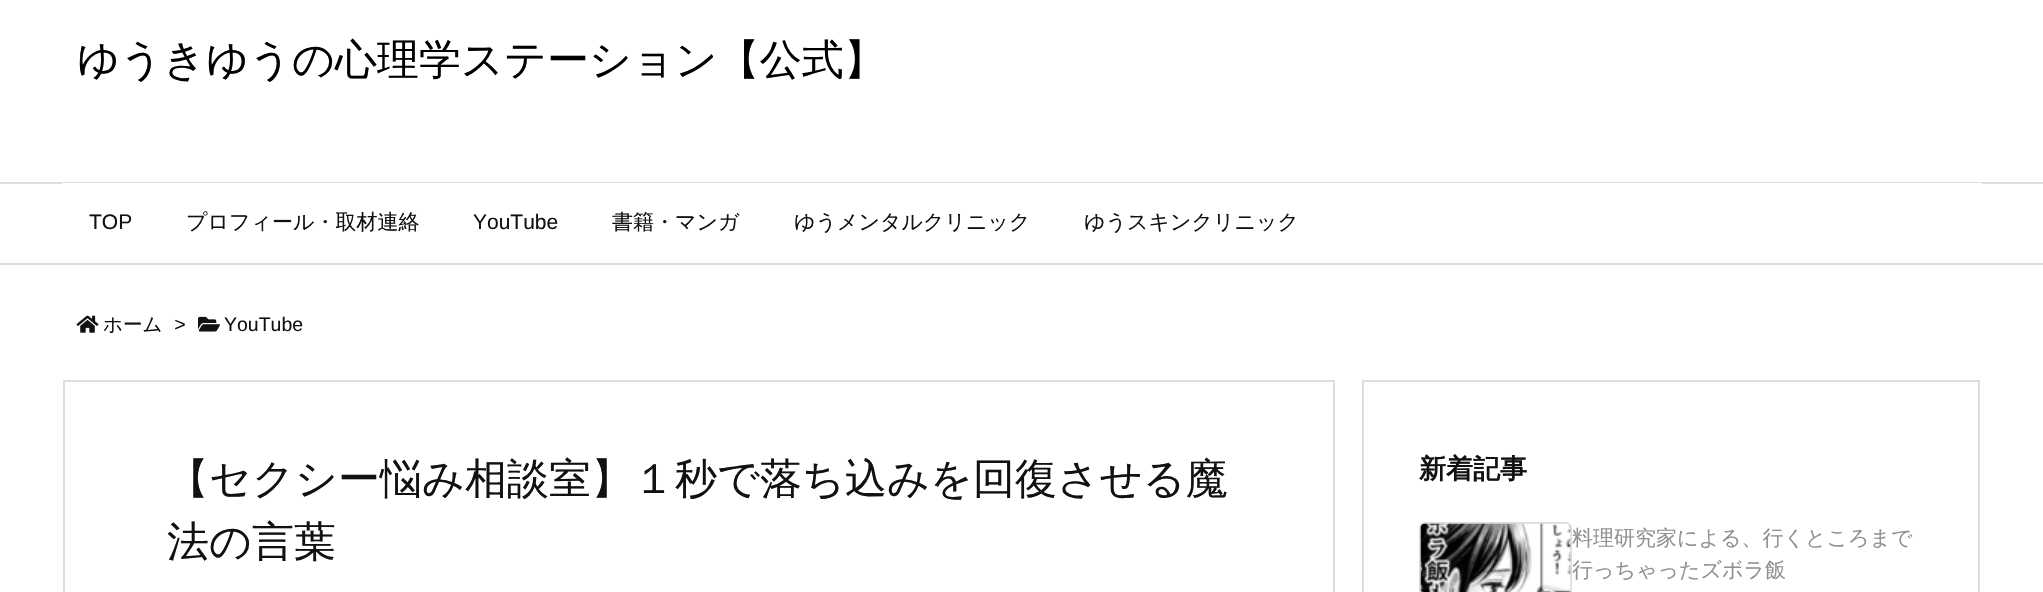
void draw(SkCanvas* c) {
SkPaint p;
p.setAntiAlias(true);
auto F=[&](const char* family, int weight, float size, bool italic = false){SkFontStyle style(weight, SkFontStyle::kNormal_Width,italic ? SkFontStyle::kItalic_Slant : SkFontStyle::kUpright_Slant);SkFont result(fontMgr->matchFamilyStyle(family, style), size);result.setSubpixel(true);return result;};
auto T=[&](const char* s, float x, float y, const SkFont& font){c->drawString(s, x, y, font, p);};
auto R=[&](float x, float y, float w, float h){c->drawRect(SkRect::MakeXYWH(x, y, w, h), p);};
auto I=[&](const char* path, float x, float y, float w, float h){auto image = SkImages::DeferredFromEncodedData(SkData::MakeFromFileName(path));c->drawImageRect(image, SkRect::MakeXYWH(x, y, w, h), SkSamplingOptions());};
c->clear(0xffffffff);
auto f1 = F("WenQuanYi Zen Hei",500,42);
p.setColor(0xff000000);
T("ゆうきゆうの心理学ステーション【公式】",77,74,f1);
p.setColor(0xffdddddd);
R(0,182,2043,2);
R(0,263,2043,2);
p.setColor(0xffffffff);
R(62,183,1920,1);
auto f2 = F("Liberation Sans",400,21);
p.setColor(0xff111111);
T("TOP",89,229,f2);
auto f3 = F("WenQuanYi Zen Hei",500,21);
T("プロフィール・取材連絡",186,229,f3);
T("YouTube",473,229,f2);
T("書籍・マンガ",612,229,f3);
T("ゆうメンタルクリニック",794,229,f3);
T("ゆうスキンクリニック",1084,229,f3);
I("1.png",76,315,23,18);
auto f4 = F("WenQuanYi Zen Hei",500,19.5);
T("ホーム",103,331,f4);
auto f5 = F("Liberation Sans",400,19.5,true);
T(">",174,331,f5);
I("2.png",198,316,22,16);
auto f6 = F("Liberation Sans",400,19.5);
T("YouTube",224,331,f6);
p.setStroke(true);
p.setStrokeWidth(2);
p.setColor(0xffdddddd);
c->drawRect(SkRect::MakeXYWH(64,381,1270,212),p);
p.setStroke(false);
p.setColor(0xff111111);
T("【セクシー悩み相談室】１秒で落ち込みを回復させる魔",167,493,f1);
T("法の言葉",167,556,f1);
p.setStroke(true);
p.setColor(0xffdddddd);
c->drawRect(SkRect::MakeXYWH(1363,381,616,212),p);
auto f7 = F("WenQuanYi Zen Hei",700,27);
p.setStroke(false);
p.setColor(0xff111111);
T("新着記事",1419,478,f7);
p.setStroke(true);
p.setColor(0xffdddddd);
c->drawRoundRect(SkRect::MakeXYWH(1420,523,151,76),5,5,p);
I("3.png",1420,523,151,69);
p.setStroke(false);
p.setColor(0xff919191);
T("料理研究家による、行くところまで",1572,545,f3);
T("行っちゃったズボラ飯",1572,577,f3);
}
